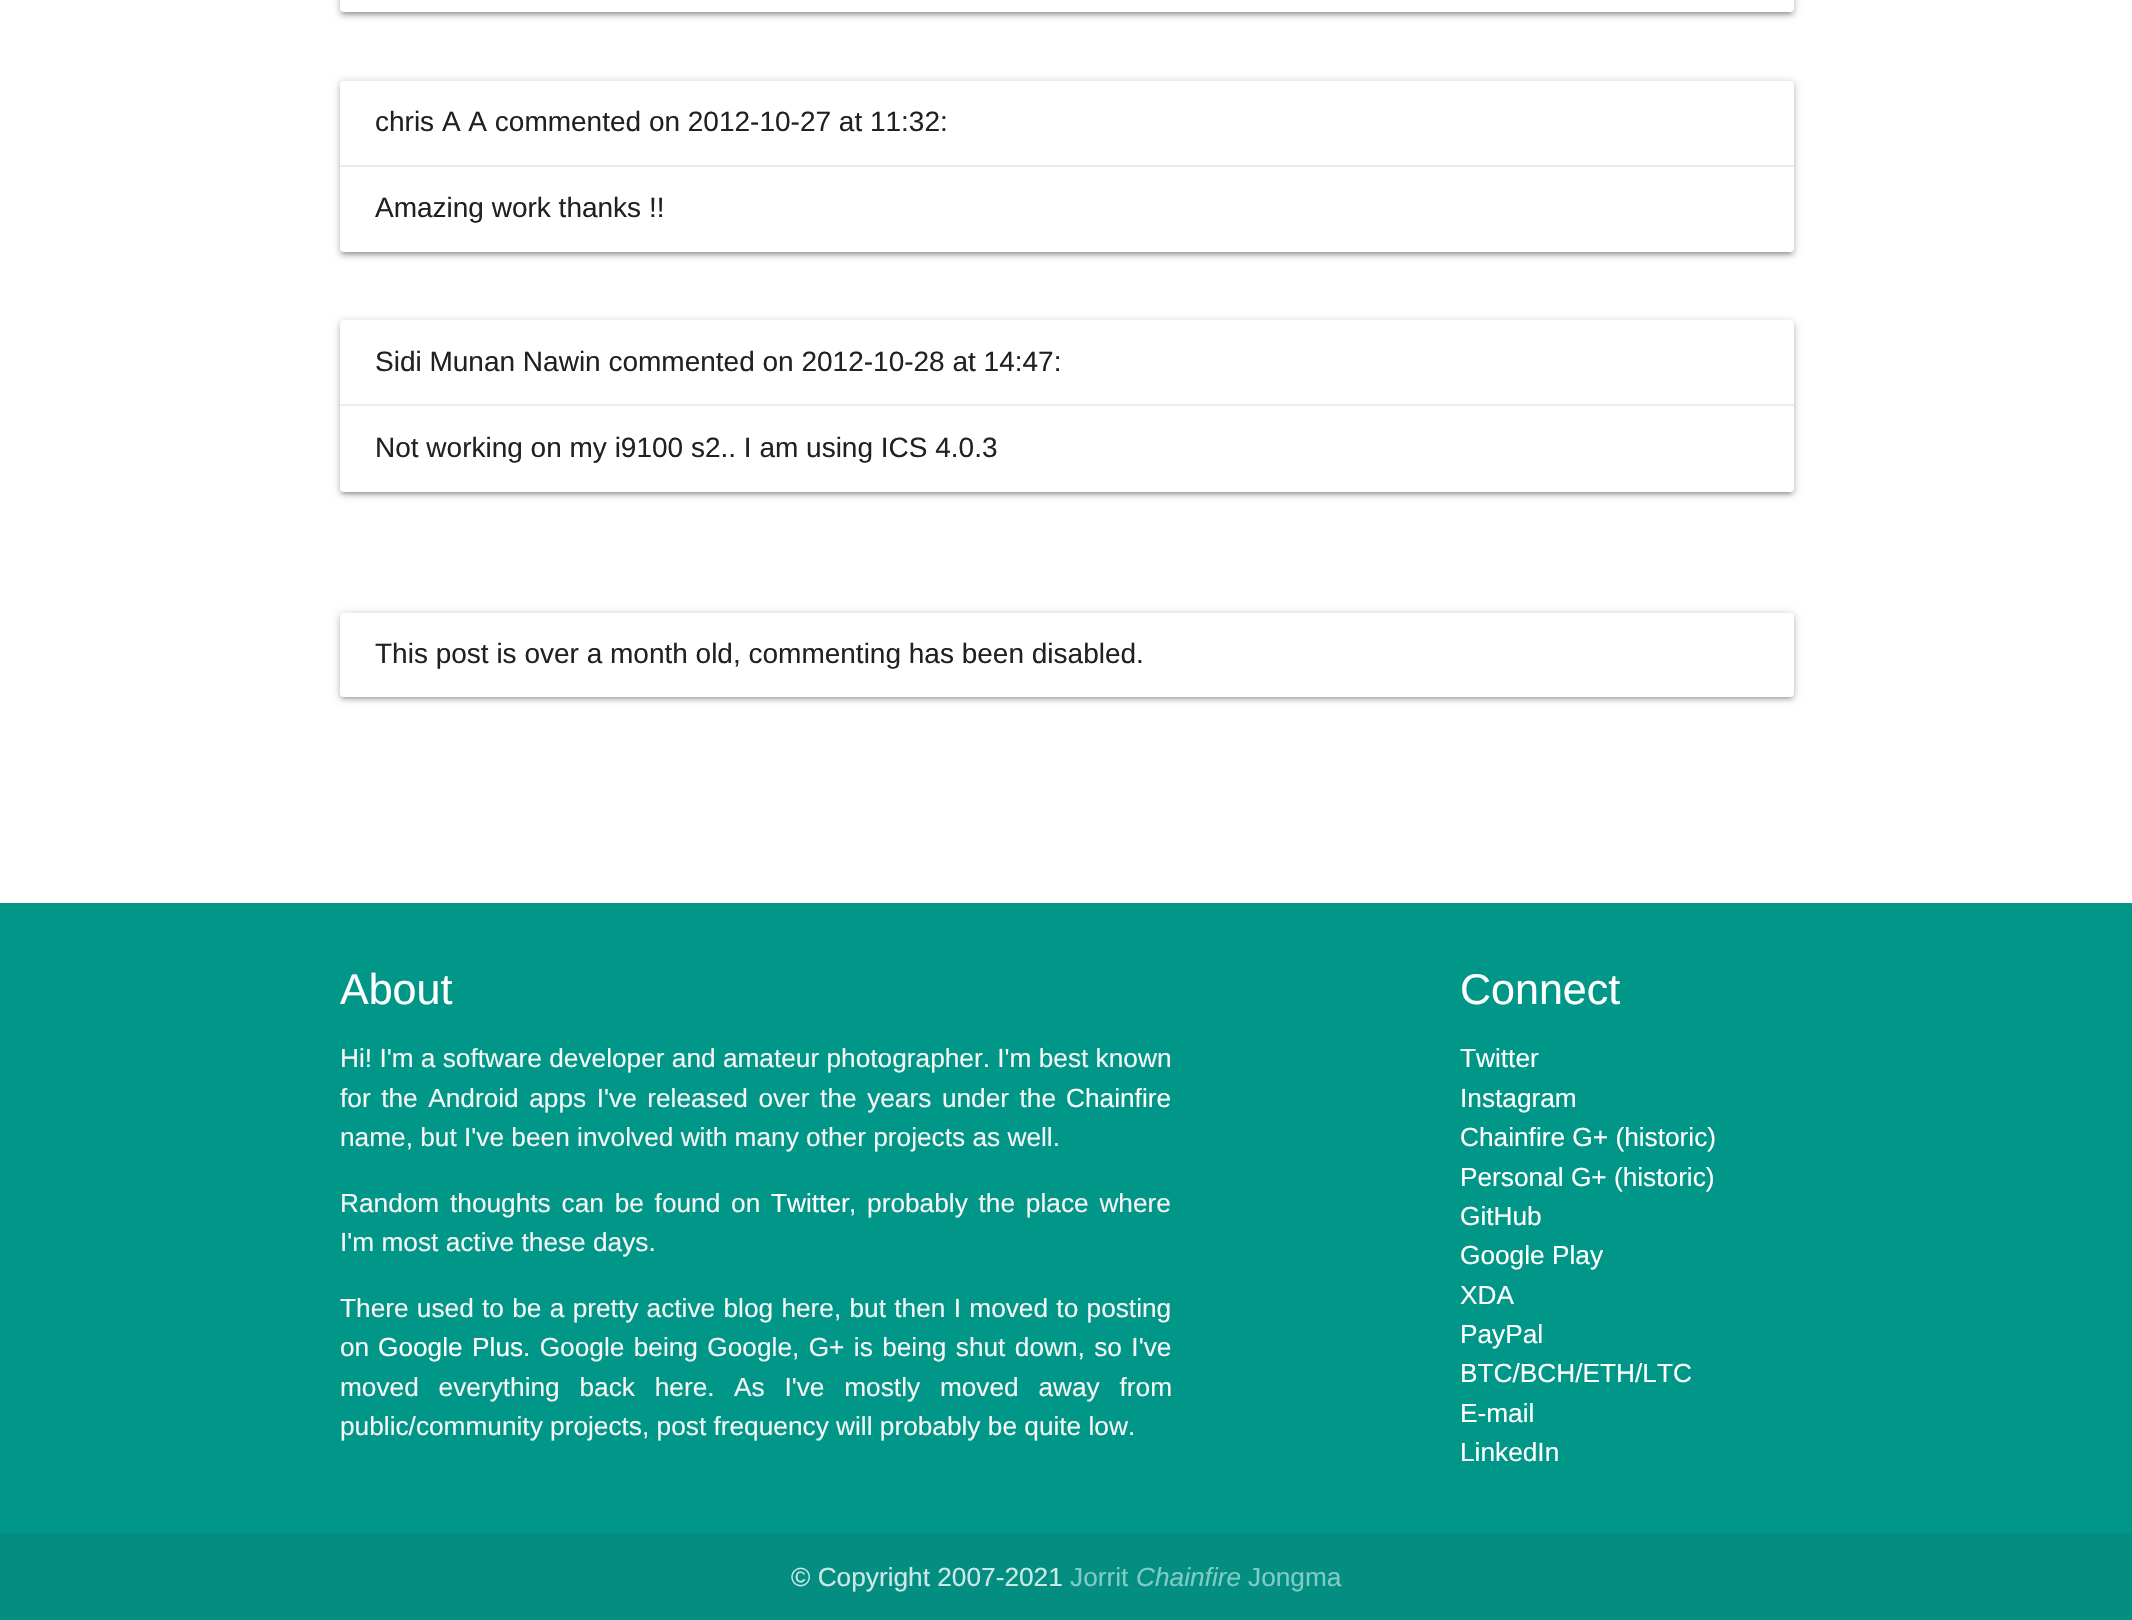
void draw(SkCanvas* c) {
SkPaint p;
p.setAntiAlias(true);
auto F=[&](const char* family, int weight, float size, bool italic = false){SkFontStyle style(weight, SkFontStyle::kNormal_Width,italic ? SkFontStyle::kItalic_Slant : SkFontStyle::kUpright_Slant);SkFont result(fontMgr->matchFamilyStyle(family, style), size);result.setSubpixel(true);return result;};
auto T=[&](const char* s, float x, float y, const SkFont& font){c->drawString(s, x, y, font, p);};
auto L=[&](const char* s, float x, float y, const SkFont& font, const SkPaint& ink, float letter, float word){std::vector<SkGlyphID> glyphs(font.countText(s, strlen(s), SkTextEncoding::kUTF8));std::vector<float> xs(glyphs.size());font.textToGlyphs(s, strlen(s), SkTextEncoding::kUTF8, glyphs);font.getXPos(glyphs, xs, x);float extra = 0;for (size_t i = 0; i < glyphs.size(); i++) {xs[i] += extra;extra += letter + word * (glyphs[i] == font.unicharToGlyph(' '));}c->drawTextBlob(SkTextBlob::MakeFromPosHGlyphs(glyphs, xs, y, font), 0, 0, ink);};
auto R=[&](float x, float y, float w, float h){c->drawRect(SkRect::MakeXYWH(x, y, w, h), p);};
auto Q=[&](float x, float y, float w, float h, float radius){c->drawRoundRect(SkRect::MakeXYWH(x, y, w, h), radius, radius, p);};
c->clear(0xffffffff);
p.setColor(0x33000000);
p.setMaskFilter(SkMaskFilter::MakeBlur(kNormal_SkBlurStyle, 4.5));
c->drawRoundRect(SkRect::MakeXYWH(340,-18,1454,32),4,4,p);
p.setMaskFilter(nullptr);
p.setColor(0x1f000000);
p.setMaskFilter(SkMaskFilter::MakeBlur(kNormal_SkBlurStyle, 1));
c->drawRect(SkRect::MakeXYWH(343,-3,1447,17),p);
p.setMaskFilter(nullptr);
p.setColor(0x24000000);
p.setMaskFilter(SkMaskFilter::MakeBlur(kNormal_SkBlurStyle, 2));
c->drawRoundRect(SkRect::MakeXYWH(340,-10,1454,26),4,4,p);
p.setMaskFilter(nullptr);
p.setColor(0xffffffff);
Q(340,-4,1454,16,4);
p.setColor(0x33000000);
p.setMaskFilter(SkMaskFilter::MakeBlur(kNormal_SkBlurStyle, 4.5));
c->drawRoundRect(SkRect::MakeXYWH(340,82,1454,172),4,4,p);
p.setMaskFilter(nullptr);
p.setColor(0x1f000000);
p.setMaskFilter(SkMaskFilter::MakeBlur(kNormal_SkBlurStyle, 1));
c->drawRect(SkRect::MakeXYWH(343,89,1447,165),p);
p.setMaskFilter(nullptr);
p.setColor(0x24000000);
p.setMaskFilter(SkMaskFilter::MakeBlur(kNormal_SkBlurStyle, 2));
c->drawRoundRect(SkRect::MakeXYWH(340,84,1454,172),4,4,p);
p.setMaskFilter(nullptr);
p.setColor(0xffffffff);
Q(340,81,1454,171,4);
auto f1 = F("Liberation Sans",400,28);
p.setColor(0xff212121);
T("chris A A commented on 2012-10-27 at 11:32:",375,131,f1);
p.setColor(0xffececec);
R(340,165,1454,2);
p.setColor(0xff212121);
T("Amazing work thanks !!",375,217,f1);
p.setColor(0x33000000);
p.setMaskFilter(SkMaskFilter::MakeBlur(kNormal_SkBlurStyle, 4.5));
c->drawRoundRect(SkRect::MakeXYWH(340,322,1454,172),4,4,p);
p.setMaskFilter(nullptr);
p.setColor(0x1f000000);
p.setMaskFilter(SkMaskFilter::MakeBlur(kNormal_SkBlurStyle, 1));
c->drawRect(SkRect::MakeXYWH(343,329,1447,165),p);
p.setMaskFilter(nullptr);
p.setColor(0x24000000);
p.setMaskFilter(SkMaskFilter::MakeBlur(kNormal_SkBlurStyle, 2));
c->drawRoundRect(SkRect::MakeXYWH(340,324,1454,171),4,4,p);
p.setMaskFilter(nullptr);
p.setColor(0xffffffff);
Q(340,320,1454,172,4);
p.setColor(0xff212121);
T("Sidi Munan Nawin commented on 2012-10-28 at 14:47:",375,371,f1);
p.setColor(0xffececec);
R(340,404,1454,2);
p.setColor(0xff212121);
T("Not working on my i9100 s2.. I am using ICS 4.0.3",375,457,f1);
p.setColor(0x33000000);
p.setMaskFilter(SkMaskFilter::MakeBlur(kNormal_SkBlurStyle, 4.5));
c->drawRoundRect(SkRect::MakeXYWH(340,614,1454,84),4,4,p);
p.setMaskFilter(nullptr);
p.setColor(0x1f000000);
p.setMaskFilter(SkMaskFilter::MakeBlur(kNormal_SkBlurStyle, 1));
c->drawRect(SkRect::MakeXYWH(343,621,1447,77),p);
p.setMaskFilter(nullptr);
p.setColor(0x24000000);
p.setMaskFilter(SkMaskFilter::MakeBlur(kNormal_SkBlurStyle, 2));
c->drawRoundRect(SkRect::MakeXYWH(340,616,1454,84),4,4,p);
p.setMaskFilter(nullptr);
p.setColor(0xffffffff);
Q(340,613,1454,84,4);
p.setColor(0xff212121);
T("This post is over a month old, commenting has been disabled.",375,663,f1);
p.setColor(0xff009688);
R(0,903,2132,630);
auto f2 = F("Liberation Sans",400,43);
p.setColor(0xffffffff);
T("About",340,1004,f2);
auto f3 = F("Liberation Sans",400,26.25);
p.setColor(0xfff5f5f5);
T("Hi! I'm a software developer and amateur photographer. I'm best known",340,1067,f3);
L("for the Android apps I've released over the years under the",340,1107,f3,p,0,3.25);
p.setColor(0xffffffff);
T("Chainfire",1066,1107,f3);
p.setColor(0xfff5f5f5);
T("name, but I've been involved with many other projects as well.",340,1146,f3);
L("Random thoughts can be found on",340,1212,f3,p,0,3.5);
p.setColor(0xffffffff);
T("Twitter",771,1212,f3);
p.setColor(0xfff5f5f5);
L(", probably the place where",849,1212,f3,p,0,3.5);
T("I'm most active these days.",340,1251,f3);
L("There used to be a pretty active blog here, but then I moved to posting",340,1317,f3,p,0,1);
T("on",340,1356,f3);
p.setColor(0xffffffff);
L("Google Plus",378,1356,f3,p,0,2.1);
p.setColor(0xfff5f5f5);
L(". Google being Google, G+ is being shut down, so I've",523,1356,f3,p,0,2.1);
L("moved everything back here.",340,1396,f3,p,0,12.5);
L("As I've mostly moved away from",734,1396,f3,p,0,12.5);
T("public/community projects, post frequency will probably be quite low.",340,1435,f3);
p.setColor(0xffffffff);
T("Connect",1460,1004,f2);
T("Twitter",1460,1067,f3);
T("Instagram",1460,1107,f3);
T("Chainfire G+ (historic)",1460,1146,f3);
T("Personal G+ (historic)",1460,1186,f3);
T("GitHub",1460,1225,f3);
T("Google Play",1460,1264,f3);
T("XDA",1460,1304,f3);
T("PayPal",1460,1343,f3);
T("BTC/BCH/ETH/LTC",1460,1382,f3);
T("E-mail",1460,1422,f3);
T("LinkedIn",1460,1461,f3);
p.setColor(0xff048e81);
R(0,1533,2132,87);
p.setColor(0xffcde8e6);
T("© Copyright 2007-2021",791,1586,f3);
p.setColor(0xff80cbc4);
T("Jorrit",1070,1586,f3);
auto f4 = F("Liberation Sans",400,26.25,true);
T("Chainfire",1136,1586,f4);
T("Jongma",1248,1586,f3);
}
